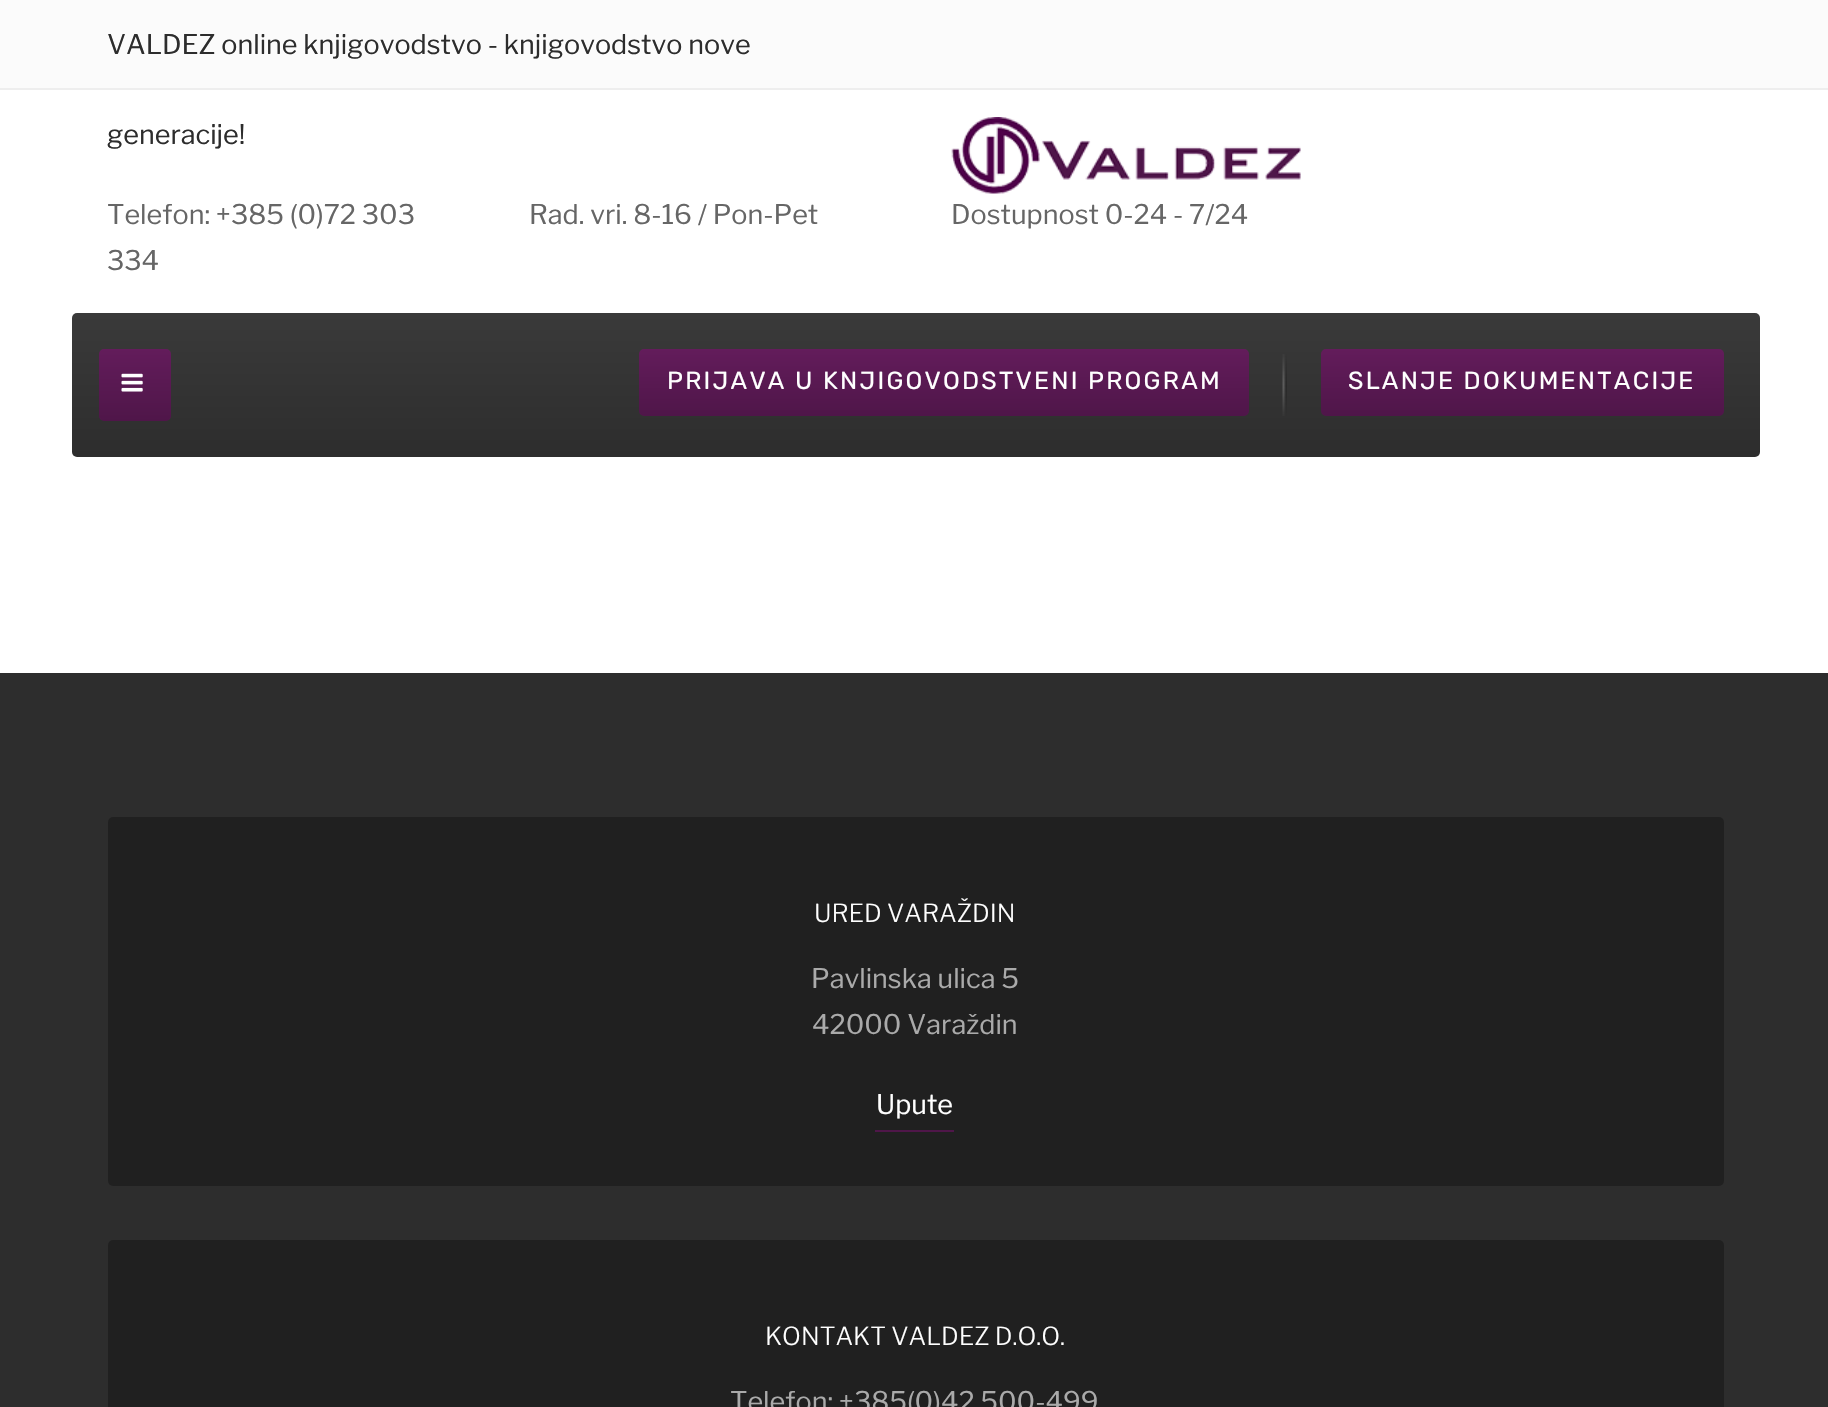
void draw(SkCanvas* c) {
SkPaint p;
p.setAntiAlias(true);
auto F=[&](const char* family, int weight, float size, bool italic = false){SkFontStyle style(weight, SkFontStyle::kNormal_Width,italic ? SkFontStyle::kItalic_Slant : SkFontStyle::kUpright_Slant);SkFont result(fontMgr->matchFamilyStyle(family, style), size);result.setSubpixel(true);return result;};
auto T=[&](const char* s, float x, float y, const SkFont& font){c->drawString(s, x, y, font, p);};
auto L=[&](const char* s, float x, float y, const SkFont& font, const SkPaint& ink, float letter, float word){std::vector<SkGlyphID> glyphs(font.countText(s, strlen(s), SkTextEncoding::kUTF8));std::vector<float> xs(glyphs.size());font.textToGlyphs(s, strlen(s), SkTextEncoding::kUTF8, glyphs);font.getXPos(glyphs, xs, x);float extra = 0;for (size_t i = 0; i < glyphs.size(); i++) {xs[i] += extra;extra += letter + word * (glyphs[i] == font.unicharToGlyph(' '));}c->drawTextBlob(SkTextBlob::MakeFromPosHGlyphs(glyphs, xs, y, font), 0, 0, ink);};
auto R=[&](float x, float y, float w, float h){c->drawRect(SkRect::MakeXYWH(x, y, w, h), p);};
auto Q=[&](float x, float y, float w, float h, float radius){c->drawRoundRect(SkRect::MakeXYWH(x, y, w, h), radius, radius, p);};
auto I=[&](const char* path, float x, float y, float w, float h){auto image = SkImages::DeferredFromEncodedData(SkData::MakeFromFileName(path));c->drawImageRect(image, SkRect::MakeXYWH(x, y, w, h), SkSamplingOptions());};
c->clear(0xffffffff);
p.setColor(0xfffbfbfb);
R(0,0,1828,88);
p.setColor(0xffeeeeee);
R(0,88,1828,2);
auto f1 = F("Libre Franklin",400,27);
p.setColor(0xff2d2d2d);
T("VALDEZ online knjigovodstvo - knjigovodstvo nove",107,54,f1);
T("generacije!",107,144,f1);
I("1.png",951,117,350,77);
p.setColor(0xff666666);
T("Telefon: +385 (0)72 303",107,224,f1);
T("334",107,270,f1);
T("Rad. vri. 8-16 / Pon-Pet",529,224,f1);
T("Dostupnost 0-24 - 7/24",951,224,f1);
{
const SkColor colors[] = {0xff3a3a3a,0xff2d2d2d};
const float stops[] = {0,1};
const SkPoint ends[] = {{916,313}, {916,457}};
p.setShader(SkGradientShader::MakeLinear(ends, colors, stops, 2, SkTileMode::kClamp));
p.setAlpha(255);
}
Q(72,313,1688,144,5);
{
const SkColor colors[] = {0xff631c5b,0xff4f1649};
const float stops[] = {0,1};
const SkPoint ends[] = {{135,349}, {135,421}};
p.setShader(SkGradientShader::MakeLinear(ends, colors, stops, 2, SkTileMode::kClamp));
p.setAlpha(255);
}
Q(99,349,72,72,5);
I("2.png",121,373,22,19);
{
const SkColor colors[] = {0xff631c5b,0xff4f1649};
const float stops[] = {0,1};
const SkPoint ends[] = {{944,349}, {944,416}};
p.setShader(SkGradientShader::MakeLinear(ends, colors, stops, 2, SkTileMode::kClamp));
p.setAlpha(255);
}
Q(639,349,610,67,5);
auto f2 = F("Rubik",400,24.75);
p.setShader(nullptr);
p.setColor(0xffffffff);
L("PRIJAVA U KNJIGOVODSTVENI PROGRAM",667,389,f2,p,2.25,0);
I("3.png",1282,354,5,62);
{
const SkColor colors[] = {0xff631c5b,0xff4f1649};
const float stops[] = {0,1};
const SkPoint ends[] = {{1522,349}, {1522,416}};
p.setShader(SkGradientShader::MakeLinear(ends, colors, stops, 2, SkTileMode::kClamp));
p.setAlpha(255);
}
Q(1321,349,403,67,5);
p.setShader(nullptr);
p.setColor(0xffffffff);
L("SLANJE DOKUMENTACIJE",1348,389,f2,p,2.25,0);
p.setColor(0xff2d2d2d);
R(0,673,1828,734);
p.setColor(0xff202020);
Q(108,817,1616,369,5);
auto f3 = F("Libre Franklin",300,24.75);
p.setColor(0xffffffff);
T("URED VARAŽDIN",814,922,f3);
p.setColor(0xffaaaaaa);
T("Pavlinska ulica 5",811,988,f1);
T("42000 Varaždin",812,1034,f1);
p.setColor(0xff4f1649);
R(875,1130,79,2);
p.setColor(0xffffffff);
T("Upute",876,1114,f1);
p.setColor(0xff202020);
Q(108,1240,1616,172,5);
p.setColor(0xffffffff);
T("KONTAKT VALDEZ D.O.O.",765,1345,f3);
p.setColor(0xffaaaaaa);
T("Telefon: +385(0)42 500-499",730,1411,f1);
}
